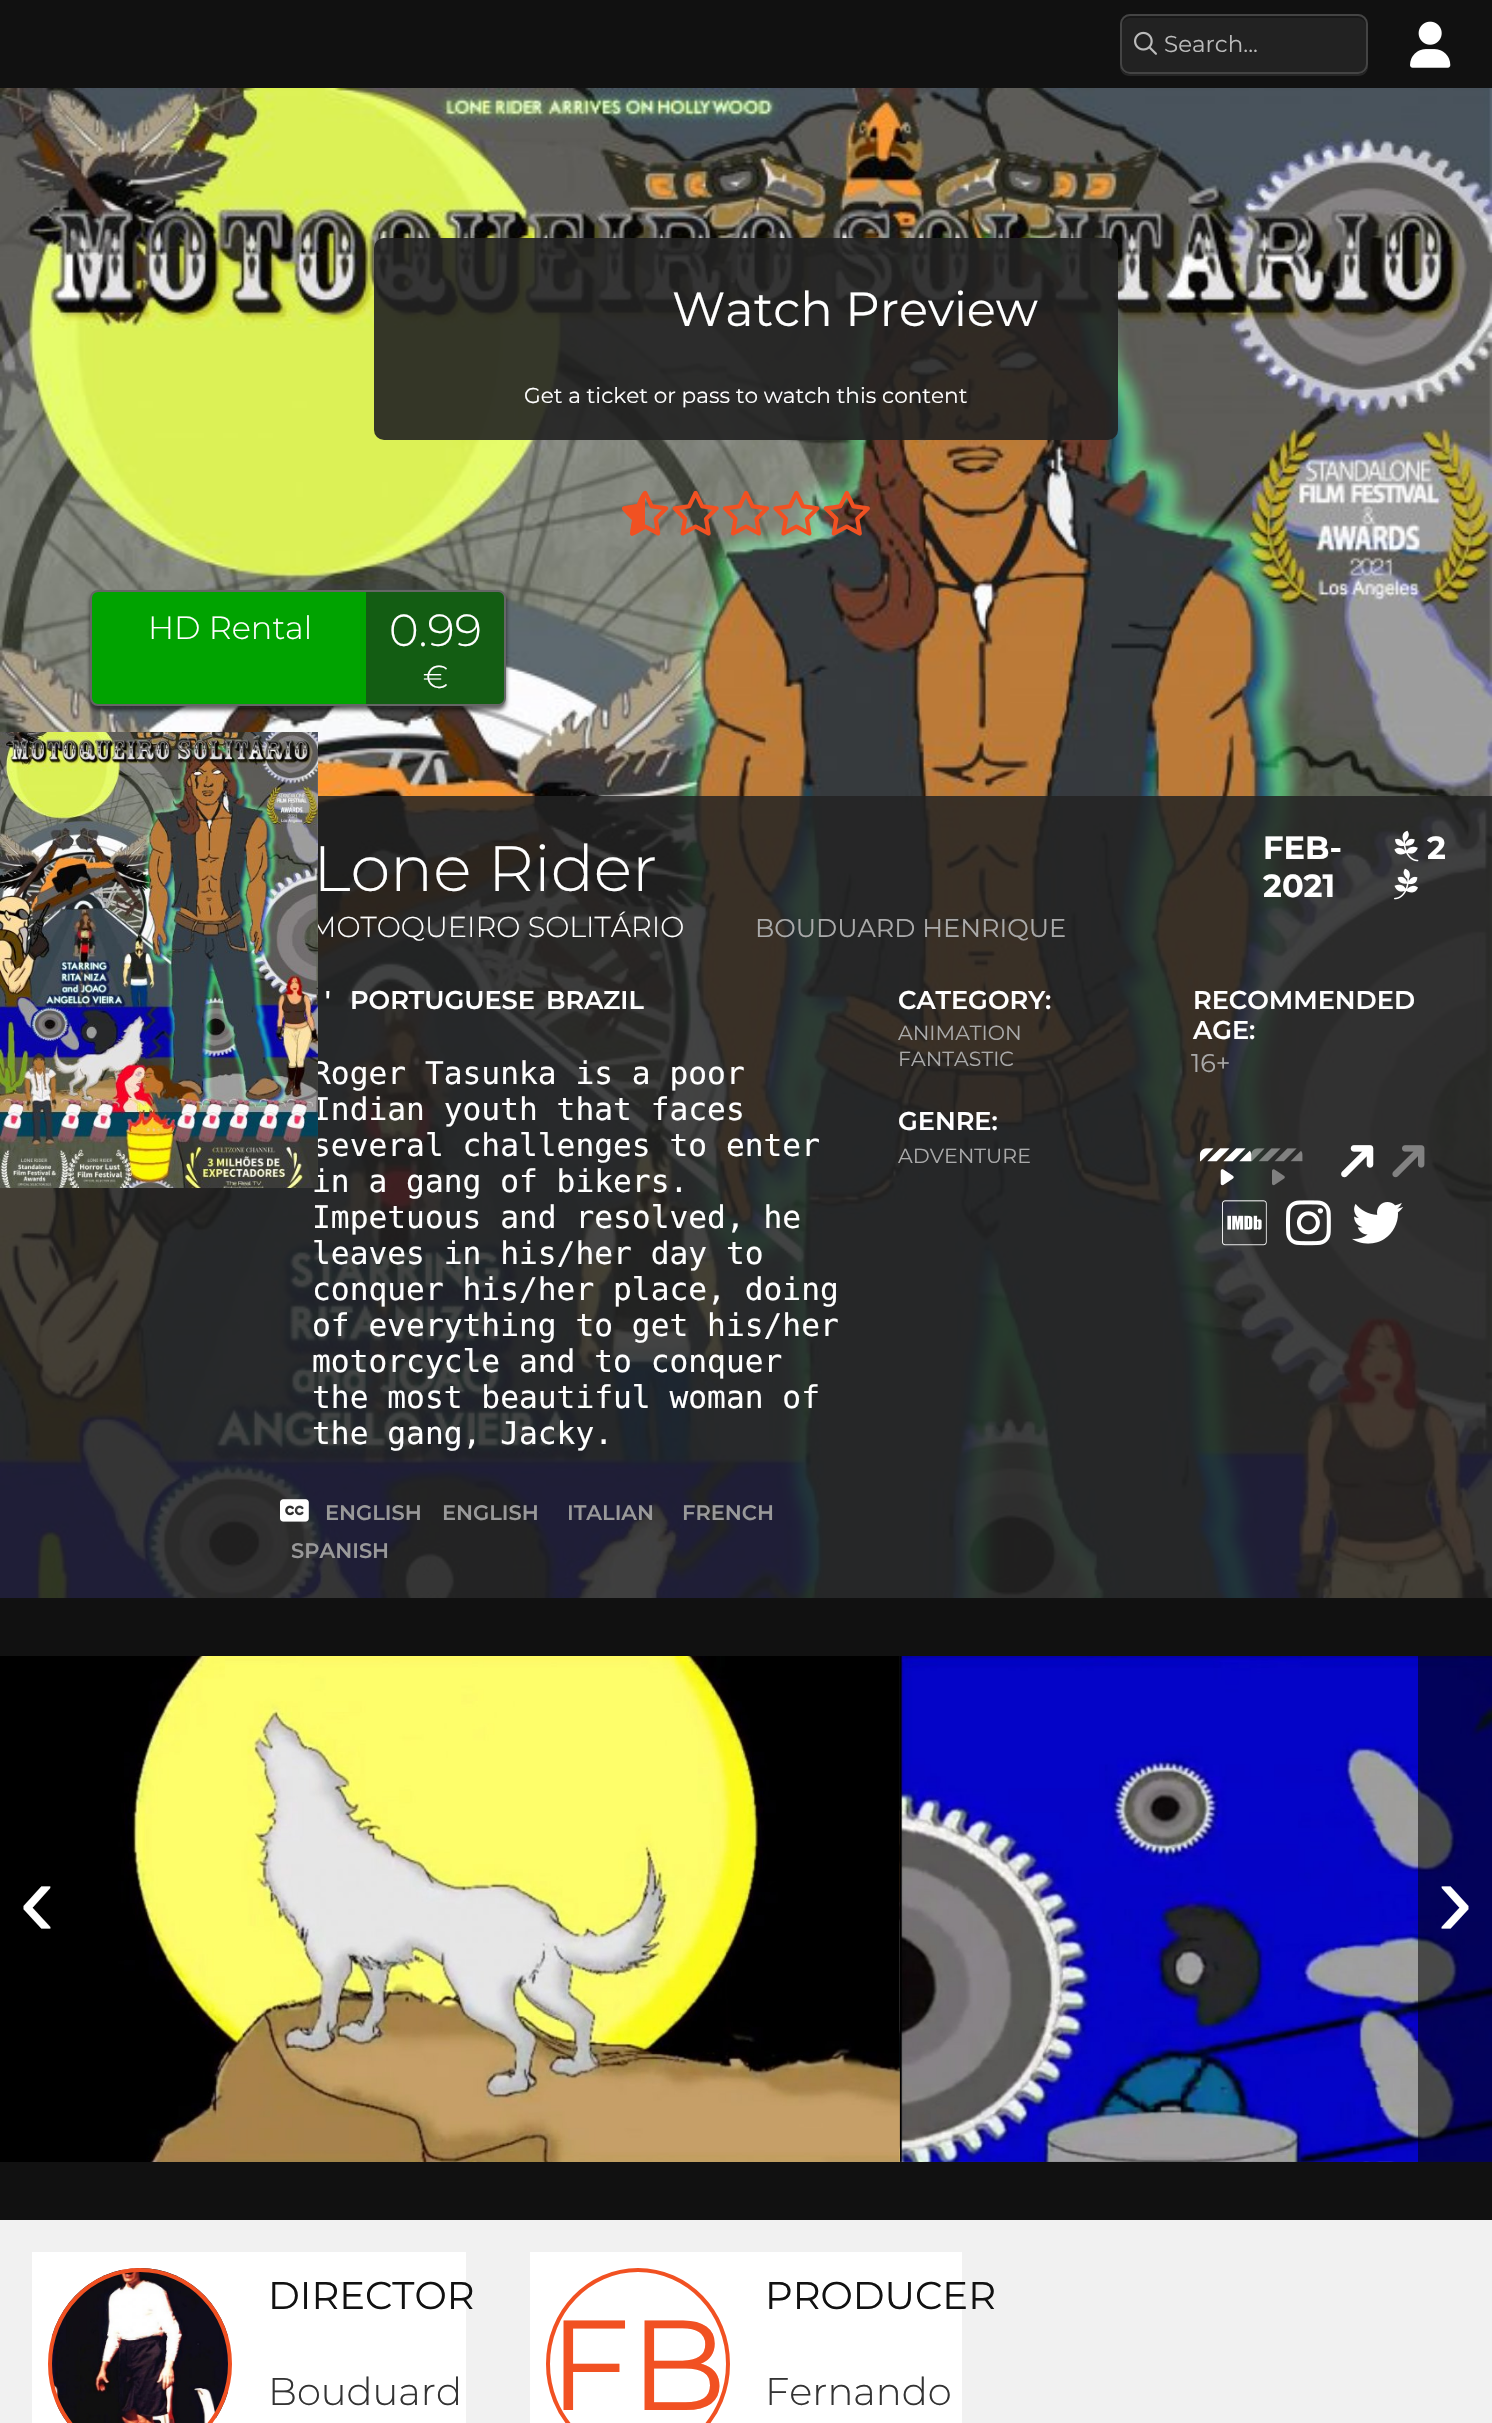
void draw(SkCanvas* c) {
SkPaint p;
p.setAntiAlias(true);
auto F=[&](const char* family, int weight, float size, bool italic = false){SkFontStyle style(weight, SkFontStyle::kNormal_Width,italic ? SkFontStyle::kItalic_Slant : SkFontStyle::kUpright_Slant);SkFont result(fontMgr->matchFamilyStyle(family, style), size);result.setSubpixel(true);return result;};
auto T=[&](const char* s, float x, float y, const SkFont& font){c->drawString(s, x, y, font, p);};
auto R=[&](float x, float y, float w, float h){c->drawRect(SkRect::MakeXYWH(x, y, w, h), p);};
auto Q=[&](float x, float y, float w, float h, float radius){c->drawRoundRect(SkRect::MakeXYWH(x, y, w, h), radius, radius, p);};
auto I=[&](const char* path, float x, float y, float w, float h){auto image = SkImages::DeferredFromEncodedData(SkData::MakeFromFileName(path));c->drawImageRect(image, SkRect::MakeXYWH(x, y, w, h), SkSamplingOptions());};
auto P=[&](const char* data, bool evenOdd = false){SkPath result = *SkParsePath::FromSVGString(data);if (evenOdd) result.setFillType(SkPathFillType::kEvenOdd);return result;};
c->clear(0xffffffff);
p.setColor(0xff111111);
R(0,0,1492,88);
p.setColor(0xff262626);
c->drawPath(P("M1120 64v2c0 6 4 10 10 10h228c6 0 10-4 10-10v-2c0 6-4 10-10 10h-228c-6 0-10-4-10-10z"),p);
p.setColor(0xff222222);
Q(1120,14,248,60,10);
p.setColor(0xff181818);
c->drawPath(P("M1130 18h228c4 0 8 4 8 8v-2c0-4-4-8-8-8h-228c-4 0-8 4-8 8v2c0-4 4-8 8-8z"),p);
p.setStroke(true);
p.setStrokeWidth(2);
p.setColor(0xff444444);
c->drawRoundRect(SkRect::MakeXYWH(1121,15,246,58),9,9,p);
I("1.png",1134,31,23,24);
auto f1 = F("Montserrat",400,23);
p.setStroke(false);
p.setColor(0xffbbbbbb);
T("Search...",1164,52,f1);
I("2.png",1410,21,41,47);
I("3.png",0,88,1492,2074);
p.setColor(0xe6212121);
Q(374,238,744,202,10);
auto f2 = F("Montserrat",400,48);
p.setColor(0xffffffff);
T("Watch Preview",672,326,f2);
auto f3 = F("Montserrat",400,21.6);
T("Get a ticket or pass to watch this content",524,403,f3);
I("4.png",622,490,248,46);
p.setColor(0xfff15122);
c->drawPath(P("M645 491c-3 0-7 10-8 13c-19 3-19 2-5 16c-3 19-4 19 13 9zm13 45h0z"),p);
p.setColor(0x17ffffff);
c->drawPath(P("M90 698v2c0 4 4 8 8 8h400c4 0 8-4 8-8v-2c0 4-4 8-8 8h-400c-4 0-8-4-8-8z"),p);
p.setColor(0x99000000);
p.setMaskFilter(SkMaskFilter::MakeBlur(kNormal_SkBlurStyle, 2));
c->drawRoundRect(SkRect::MakeXYWH(90,594,416,116),8,8,p);
p.setMaskFilter(nullptr);
p.setColor(0xff00a300);
c->drawRoundRect(SkRect::MakeXYWH(91,591,414,114),7,7,p);
p.setStroke(true);
p.setColor(0xff666666);
c->drawRoundRect(SkRect::MakeXYWH(91,591,414,114),7,7,p);
auto f4 = F("Montserrat",300,32);
p.setStroke(false);
p.setColor(0xffffffff);
T("HD Rental",148,639,f4);
p.setColor(0x8c222222);
c->drawPath(P("M366 592h132c3.5 0 6 2.5 6 6v100c0 3.5-2.5 6-6 6h-132z"),p);
auto f5 = F("Montserrat",300,45);
p.setColor(0xffffffff);
T("0.99",389,646,f5);
T("€",423,688,f4);
p.setColor(0xd9222222);
R(0,796,1492,802);
auto f6 = F("Montserrat",300,28.75);
p.setColor(0xffffffff);
T("MOTOQUEIRO SOLITÁRIO",309,937,f6);
auto f7 = F("DejaVu Sans Mono",400,31.25);
T("Roger Tasunka is a poor",312,1084,f7);
T("Indian youth that faces",312,1120,f7);
T("several challenges to enter",312,1156,f7);
T("in a gang of bikers.",312,1192,f7);
I("5.png",0,732,318,456);
auto f8 = F("Montserrat",300,64);
T("Lone Rider",313,891,f8);
auto f9 = F("Montserrat",400,25.6);
p.setColor(0xffaaaaaa);
T("BOUDUARD HENRIQUE",755,937,f9);
auto f10 = F("Montserrat",700,32);
p.setColor(0xffffffff);
T("FEB-",1263,859,f10);
T("2021",1263,897,f10);
I("6.png",1394,830,25,32);
T("2",1427,859,f10);
I("7.png",1394,868,24,32);
auto f11 = F("Montserrat",600,25.6);
T("'",325,1009,f11);
T("PORTUGUESE",350,1009,f11);
T("BRAZIL",546,1009,f11);
T("Impetuous and resolved, he",312,1228,f7);
T("leaves in his/her day to",312,1264,f7);
T("conquer his/her place, doing",312,1300,f7);
T("of everything to get his/her",312,1336,f7);
T("motorcycle and to conquer",312,1372,f7);
T("the most beautiful woman of",312,1408,f7);
T("the gang, Jacky.",312,1444,f7);
I("8.png",280,1499,29,23);
auto f12 = F("Montserrat",600,21);
p.setColor(0xff999999);
T("ENGLISH",325,1520,f12);
T("ENGLISH",442,1520,f12);
T("ITALIAN",567,1520,f12);
T("FRENCH",682,1520,f12);
T("SPANISH",291,1558,f12);
p.setColor(0xffffffff);
T("CATEGORY:",898,1009,f11);
auto f13 = F("Montserrat",400,20.5);
p.setColor(0xffaaaaaa);
T("ANIMATION",898,1040,f13);
T("FANTASTIC",898,1066,f13);
p.setColor(0xffffffff);
T("GENRE:",898,1130,f11);
p.setColor(0xffaaaaaa);
T("ADVENTURE",898,1163,f13);
p.setColor(0xffffffff);
T("RECOMMENDED",1193,1009,f11);
T("AGE:",1193,1039,f11);
p.setColor(0xffaaaaaa);
T("16+",1191,1072,f9);
I("9.png",1200,1148,52,38);
I("10.png",1200,1148,103,38);
I("11.png",1341,1145,33,33);
I("12.png",1341,1145,84,33);
I("13.png",1222,1200,45,46);
I("14.png",1286,1200,45,46);
I("15.png",1352,1202,51,42);
p.setColor(0xff111111);
R(0,1598,1492,58);
I("16.png",0,1656,900,506);
I("17.png",900,1656,592,506);
auto f14 = F("Liberation Sans",400,108);
p.setColor(0xffffffff);
T("‹",19,1936,f14);
p.setColor(0x8c000000);
R(1418,1656,74,506);
p.setColor(0xffffffff);
T("›",1437,1936,f14);
p.setColor(0xff111111);
R(0,2162,1492,58);
p.setColor(0xfff1f1f1);
R(0,2220,1492,203);
p.setColor(0xffffffff);
R(32,2252,434,171);
I("18.png",52,2268,176,155);
p.setStroke(true);
p.setStrokeWidth(4);
p.setColor(0xfff15122);
c->drawPath(P("M140 2270c49.5 0 90 42 90 94c0 52-40.5 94-90 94c-49.5 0-90-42-90-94c0-52 40.5-94 90-94z"),p);
auto f15 = F("Montserrat",400,38.5);
p.setStroke(false);
p.setColor(0xff111111);
T("DIRECTOR",268,2309,f15);
auto f16 = F("Montserrat",300,38.5);
p.setColor(0xff333333);
T("Bouduard",268,2405,f16);
p.setColor(0xffffffff);
R(530,2252,432,171);
p.setStroke(true);
p.setColor(0xfff15122);
c->drawPath(P("M638 2270c49.5 0 90 42 90 94c0 52-40.5 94-90 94c-49.5 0-90-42-90-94c0-52 40.5-94 90-94z"),p);
auto f17 = F("Montserrat",400,128);
p.setStroke(false);
T("FB",549,2410,f17);
p.setColor(0xff111111);
T("PRODUCER",765,2309,f15);
p.setColor(0xff333333);
T("Fernando",765,2405,f16);
}
